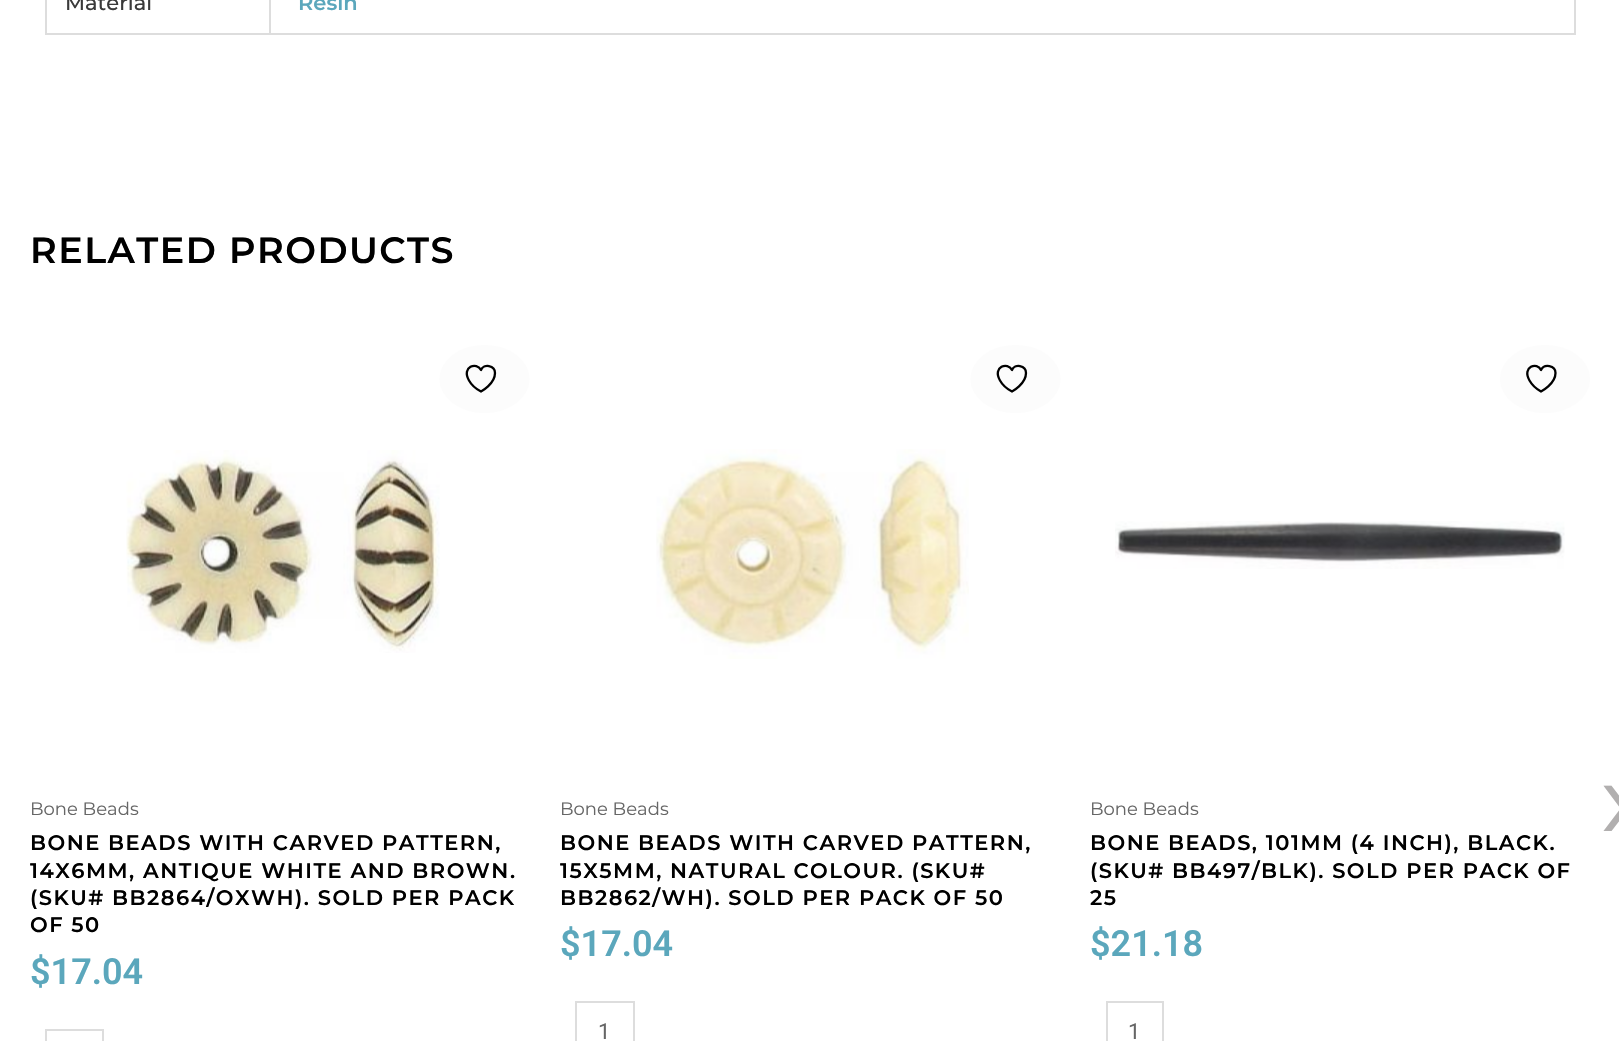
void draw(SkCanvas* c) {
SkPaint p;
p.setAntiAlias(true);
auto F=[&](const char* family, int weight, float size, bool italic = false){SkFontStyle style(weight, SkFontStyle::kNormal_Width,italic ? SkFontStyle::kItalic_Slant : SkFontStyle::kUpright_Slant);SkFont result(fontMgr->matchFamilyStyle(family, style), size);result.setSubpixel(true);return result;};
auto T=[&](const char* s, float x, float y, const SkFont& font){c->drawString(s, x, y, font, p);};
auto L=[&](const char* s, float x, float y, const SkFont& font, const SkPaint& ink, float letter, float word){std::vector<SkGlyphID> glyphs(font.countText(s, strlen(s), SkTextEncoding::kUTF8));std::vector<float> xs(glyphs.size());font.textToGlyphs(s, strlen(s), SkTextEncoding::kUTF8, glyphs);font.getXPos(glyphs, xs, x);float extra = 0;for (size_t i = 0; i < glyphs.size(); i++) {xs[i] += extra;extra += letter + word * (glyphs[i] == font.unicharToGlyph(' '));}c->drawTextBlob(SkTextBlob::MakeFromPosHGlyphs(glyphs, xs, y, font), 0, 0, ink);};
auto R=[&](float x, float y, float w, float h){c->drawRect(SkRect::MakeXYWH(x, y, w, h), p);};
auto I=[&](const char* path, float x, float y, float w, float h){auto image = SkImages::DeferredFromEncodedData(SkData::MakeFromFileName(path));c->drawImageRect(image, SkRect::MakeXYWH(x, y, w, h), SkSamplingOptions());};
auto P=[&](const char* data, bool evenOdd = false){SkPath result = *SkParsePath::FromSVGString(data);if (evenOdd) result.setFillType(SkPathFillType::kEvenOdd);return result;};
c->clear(0xffffffff);
p.setColor(0xffdddddd);
R(269,0,2,35);
R(45,33,225,2);
R(45,0,2,35);
auto f1 = F("Montserrat",500,21);
p.setColor(0xff3a3a3a);
T("Material",65,10,f1);
p.setColor(0xffdddddd);
R(1574,0,2,35);
R(270,33,1305,2);
auto f2 = F("Montserrat",600,21);
p.setColor(0xff5ba7bc);
T("Resin",298,10,f2);
auto f3 = F("Montserrat",600,36.5);
p.setColor(0xff000000);
L("RELATED PRODUCTS",30,263,f3,p,1.5,0);
p.setColor(0xfffcfcfc);
c->drawOval(SkRect::MakeXYWH(439.5,345,90,68),p);
p.setStroke(true);
p.setStrokeWidth(2.3);
p.setStrokeCap(SkPaint::kRound_Cap);
p.setStrokeJoin(SkPaint::kRound_Join);
p.setColor(0xff000000);
c->drawPath(P("M495 373c0-8-11.5-9.5-14-3c-4-8.5-20-3.5-12 10.5c2.5 4.5 7 8.5 12 11c0 0 14-7.5 14-18.5z"),p);
I("1.png",126,450,314,203);
auto f4 = F("Montserrat",400,18);
p.setStroke(false);
p.setColor(0xff666666);
T("Bone Beads",30,815,f4);
p.setColor(0xff000000);
L("BONE BEADS WITH CARVED PATTERN,",30,850,f2,p,1.5,0);
L("14X6MM, ANTIQUE WHITE AND BROWN.",30,878,f2,p,1.5,0);
L("(SKU# BB2864/OXWH). SOLD PER PACK",30,905,f2,p,1.5,0);
L("OF 50",30,932,f2,p,1.5,0);
auto f5 = F("Roboto",600,36);
p.setColor(0xff5ba7bc);
T("$17.04",30,984,f5);
p.setStroke(true);
p.setStrokeWidth(2);
p.setStrokeCap(SkPaint::kButt_Cap);
p.setStrokeJoin(SkPaint::kMiter_Join);
p.setColor(0xffdddddd);
c->drawRect(SkRect::MakeXYWH(46,1030,57,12),p);
p.setStroke(false);
p.setColor(0xfffcfcfc);
c->drawOval(SkRect::MakeXYWH(970.5,345,90,68),p);
p.setStroke(true);
p.setStrokeWidth(2.3);
p.setStrokeCap(SkPaint::kRound_Cap);
p.setStrokeJoin(SkPaint::kRound_Join);
p.setColor(0xff000000);
c->drawPath(P("M1026 373c0-8-11.5-9.5-14-3c-4-8.5-20-3.5-12 10.5c2.5 4.5 7 8.5 12 11c0 0 14-7.5 14-18.5z"),p);
I("2.png",656,449,313,210);
p.setStroke(false);
p.setColor(0xff666666);
T("Bone Beads",560,815,f4);
p.setColor(0xff000000);
L("BONE BEADS WITH CARVED PATTERN,",560,850,f2,p,1.5,0);
L("15X5MM, NATURAL COLOUR. (SKU#",560,878,f2,p,1.5,0);
L("BB2862/WH). SOLD PER PACK OF 50",560,905,f2,p,1.5,0);
p.setColor(0xff5ba7bc);
T("$17.04",560,956,f5);
p.setStroke(true);
p.setStrokeWidth(2);
p.setStrokeCap(SkPaint::kButt_Cap);
p.setStrokeJoin(SkPaint::kMiter_Join);
p.setColor(0xffdddddd);
c->drawRect(SkRect::MakeXYWH(576,1002,58,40),p);
auto f6 = F("Roboto",400,22);
p.setStroke(false);
p.setColor(0xff666666);
T("1",598,1039,f6);
p.setColor(0xfffcfcfc);
c->drawOval(SkRect::MakeXYWH(1500,345,90,68),p);
p.setStroke(true);
p.setStrokeWidth(2.3);
p.setStrokeCap(SkPaint::kRound_Cap);
p.setStrokeJoin(SkPaint::kRound_Join);
p.setColor(0xff000000);
c->drawPath(P("M1555.5 373c0-8-11.5-9.5-14.5-3c-3.5-8.5-19.5-3.5-11.5 10.5c2.5 4.5 7 8.5 11.5 11c0 0 14.5-7.5 14.5-18.5z"),p);
I("3.png",1115,521,450,48);
p.setStroke(false);
p.setColor(0xff666666);
T("Bone Beads",1090,815,f4);
p.setColor(0xff000000);
L("BONE BEADS, 101MM (4 INCH), BLACK.",1090,850,f2,p,1.5,0);
L("(SKU# BB497/BLK). SOLD PER PACK OF",1090,878,f2,p,1.5,0);
L("25",1090,905,f2,p,1.5,0);
p.setColor(0xff5ba7bc);
T("$21.18",1090,956,f5);
p.setStroke(true);
p.setStrokeWidth(2);
p.setStrokeCap(SkPaint::kButt_Cap);
p.setStrokeJoin(SkPaint::kMiter_Join);
p.setColor(0xffdddddd);
c->drawRect(SkRect::MakeXYWH(1107,1002,56,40),p);
p.setStroke(false);
p.setColor(0xff666666);
T("1",1128,1039,f6);
auto f7 = F("Montserrat",400,120);
p.setColor(0xffb1afaf);
T("›",1599,840,f7);
}
